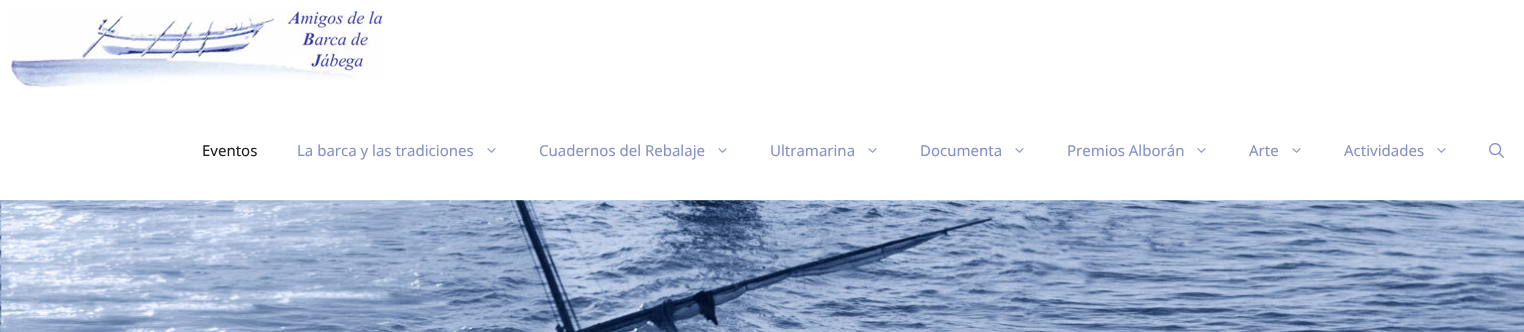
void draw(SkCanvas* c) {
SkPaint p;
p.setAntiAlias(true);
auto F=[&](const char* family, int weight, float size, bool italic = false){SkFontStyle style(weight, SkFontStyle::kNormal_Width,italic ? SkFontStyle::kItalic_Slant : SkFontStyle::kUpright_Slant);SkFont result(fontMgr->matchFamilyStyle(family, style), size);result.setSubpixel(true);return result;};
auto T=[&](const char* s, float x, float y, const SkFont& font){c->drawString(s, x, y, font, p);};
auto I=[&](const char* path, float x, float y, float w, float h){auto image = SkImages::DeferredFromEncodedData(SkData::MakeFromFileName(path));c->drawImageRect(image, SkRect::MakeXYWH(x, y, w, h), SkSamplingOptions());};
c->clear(0xffffffff);
I("1.png",10,10,373,80);
auto f1 = F("Noto Sans",400,15);
p.setColor(0xff222222);
T("Eventos",202,156,f1);
p.setColor(0xff8591c5);
T("La barca y las tradiciones",297,156,f1);
I("2.png",487,148,9,5);
T("Cuadernos del Rebalaje",539,156,f1);
I("2.png",718,148,9,5);
T("Ultramarina",770,156,f1);
I("2.png",868,148,9,5);
T("Documenta",920,156,f1);
I("2.png",1015,148,9,5);
T("Premios Alborán",1067,156,f1);
I("2.png",1197,148,9,5);
T("Arte",1249,156,f1);
I("2.png",1292,148,9,5);
T("Actividades",1344,156,f1);
I("2.png",1437,148,9,5);
I("3.png",1489,143,15,15);
I("4.png",0,200,1524,132);
}
